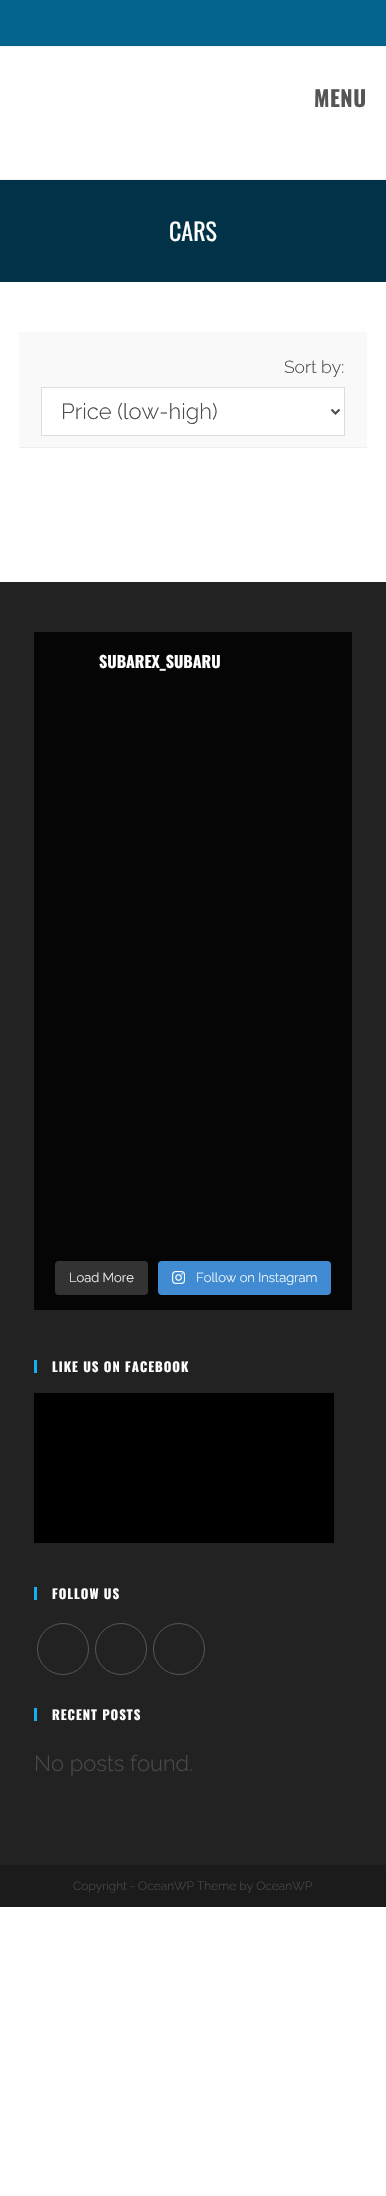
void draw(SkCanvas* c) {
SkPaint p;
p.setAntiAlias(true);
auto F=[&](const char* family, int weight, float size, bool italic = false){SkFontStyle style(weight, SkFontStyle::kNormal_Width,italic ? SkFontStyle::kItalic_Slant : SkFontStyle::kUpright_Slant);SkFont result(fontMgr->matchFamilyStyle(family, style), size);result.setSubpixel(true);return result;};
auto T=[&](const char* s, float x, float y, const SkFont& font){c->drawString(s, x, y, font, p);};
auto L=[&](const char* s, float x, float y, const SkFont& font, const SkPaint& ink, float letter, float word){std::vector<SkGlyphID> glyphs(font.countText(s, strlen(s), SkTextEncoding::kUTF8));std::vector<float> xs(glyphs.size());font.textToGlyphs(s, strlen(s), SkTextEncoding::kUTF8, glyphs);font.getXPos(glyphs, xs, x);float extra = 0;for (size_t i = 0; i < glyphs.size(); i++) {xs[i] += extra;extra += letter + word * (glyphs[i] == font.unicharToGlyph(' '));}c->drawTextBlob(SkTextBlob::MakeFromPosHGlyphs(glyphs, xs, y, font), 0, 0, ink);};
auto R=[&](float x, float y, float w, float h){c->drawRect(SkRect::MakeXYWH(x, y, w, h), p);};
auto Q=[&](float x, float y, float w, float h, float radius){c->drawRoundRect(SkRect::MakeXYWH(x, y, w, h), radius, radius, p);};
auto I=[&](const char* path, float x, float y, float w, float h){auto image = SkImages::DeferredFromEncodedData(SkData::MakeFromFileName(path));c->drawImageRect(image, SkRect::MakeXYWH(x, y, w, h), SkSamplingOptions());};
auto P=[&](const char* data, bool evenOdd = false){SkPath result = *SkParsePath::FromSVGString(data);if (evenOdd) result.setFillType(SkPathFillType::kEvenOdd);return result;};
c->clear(0xffffffff);
p.setColor(0xff04648e);
R(0,0,386,46);
p.setColor(0xfff1f1f1);
R(0,46,386,1);
R(0,179,386,1);
auto f1 = F("Oswald",700,22);
p.setColor(0xff555555);
L("MENU",314,107,f1,p,.5,0);
p.setColor(0xff023247);
R(0,180,386,102);
auto f2 = F("Oswald",400,24);
p.setColor(0xffffffff);
T("CARS",169,241,f2);
p.setColor(0xfff9f9f9);
R(19,332,348,115);
p.setColor(0xffeeeeee);
R(19,447,348,1);
auto f3 = F("Raleway",300,17.5);
p.setColor(0xff4a4a4a);
T("Sort by:",284,373,f3);
p.setColor(0xffffffff);
c->drawRect(SkRect::MakeXYWH(41.5,387.5,303,48),p);
p.setStroke(true);
p.setStrokeWidth(1);
p.setColor(0xffdddddd);
c->drawRect(SkRect::MakeXYWH(41.5,387.5,303,48),p);
p.setStrokeWidth(2);
p.setColor(0xff4a4a4a);
c->drawPath(P("M331.5 409.5l4 4l4-4"),p);
auto f4 = F("Raleway",300,22);
p.setStroke(false);
T("Price (low-high)",61,419,f4);
p.setColor(0xff222222);
R(0,582,386,1283);
p.setColor(0xff050505);
R(34,632,318,678);
auto f5 = F("Oswald",700,16);
p.setColor(0xffffffff);
T("SUBAREX_SUBARU",99,668,f5);
p.setColor(0xff333333);
Q(55,1261,93,34,4);
auto f6 = F("Raleway",300,13);
p.setColor(0xffffffff);
T("Load More",69,1282,f6);
p.setColor(0xff408bd1);
Q(158,1261,173,34,4);
I("1.png",172,1271,13,13);
p.setColor(0xffffffff);
T("Follow on Instagram",196,1282,f6);
p.setColor(0xff13aff0);
R(34,1360,3,13);
auto f7 = F("Oswald",700,13);
p.setColor(0xffffffff);
L("LIKE US ON FACEBOOK",52,1372,f7,p,1,0);
p.setColor(0xff000000);
R(34,1393,300,150);
p.setColor(0xff13aff0);
R(34,1587,3,13);
p.setColor(0xffffffff);
L("FOLLOW US",52,1599,f7,p,1,0);
p.setStroke(true);
p.setStrokeWidth(1);
p.setColor(0xff555555);
c->drawCircle(63,1649,25.5,p);
c->drawCircle(121,1649,25.5,p);
c->drawCircle(179,1649,25.5,p);
p.setStroke(false);
p.setColor(0xff13aff0);
R(34,1708,3,13);
p.setColor(0xffffffff);
L("RECENT POSTS",52,1720,f7,p,1,0);
p.setColor(0xff4a4a4a);
T("No posts found.",34,1771,f4);
p.setColor(0xff1b1b1b);
R(0,1865,386,42);
auto f8 = F("Raleway",300,12);
p.setColor(0xff4a4a4a);
T("Copyright - OceanWP Theme by OceanWP",73,1890,f8);
}
